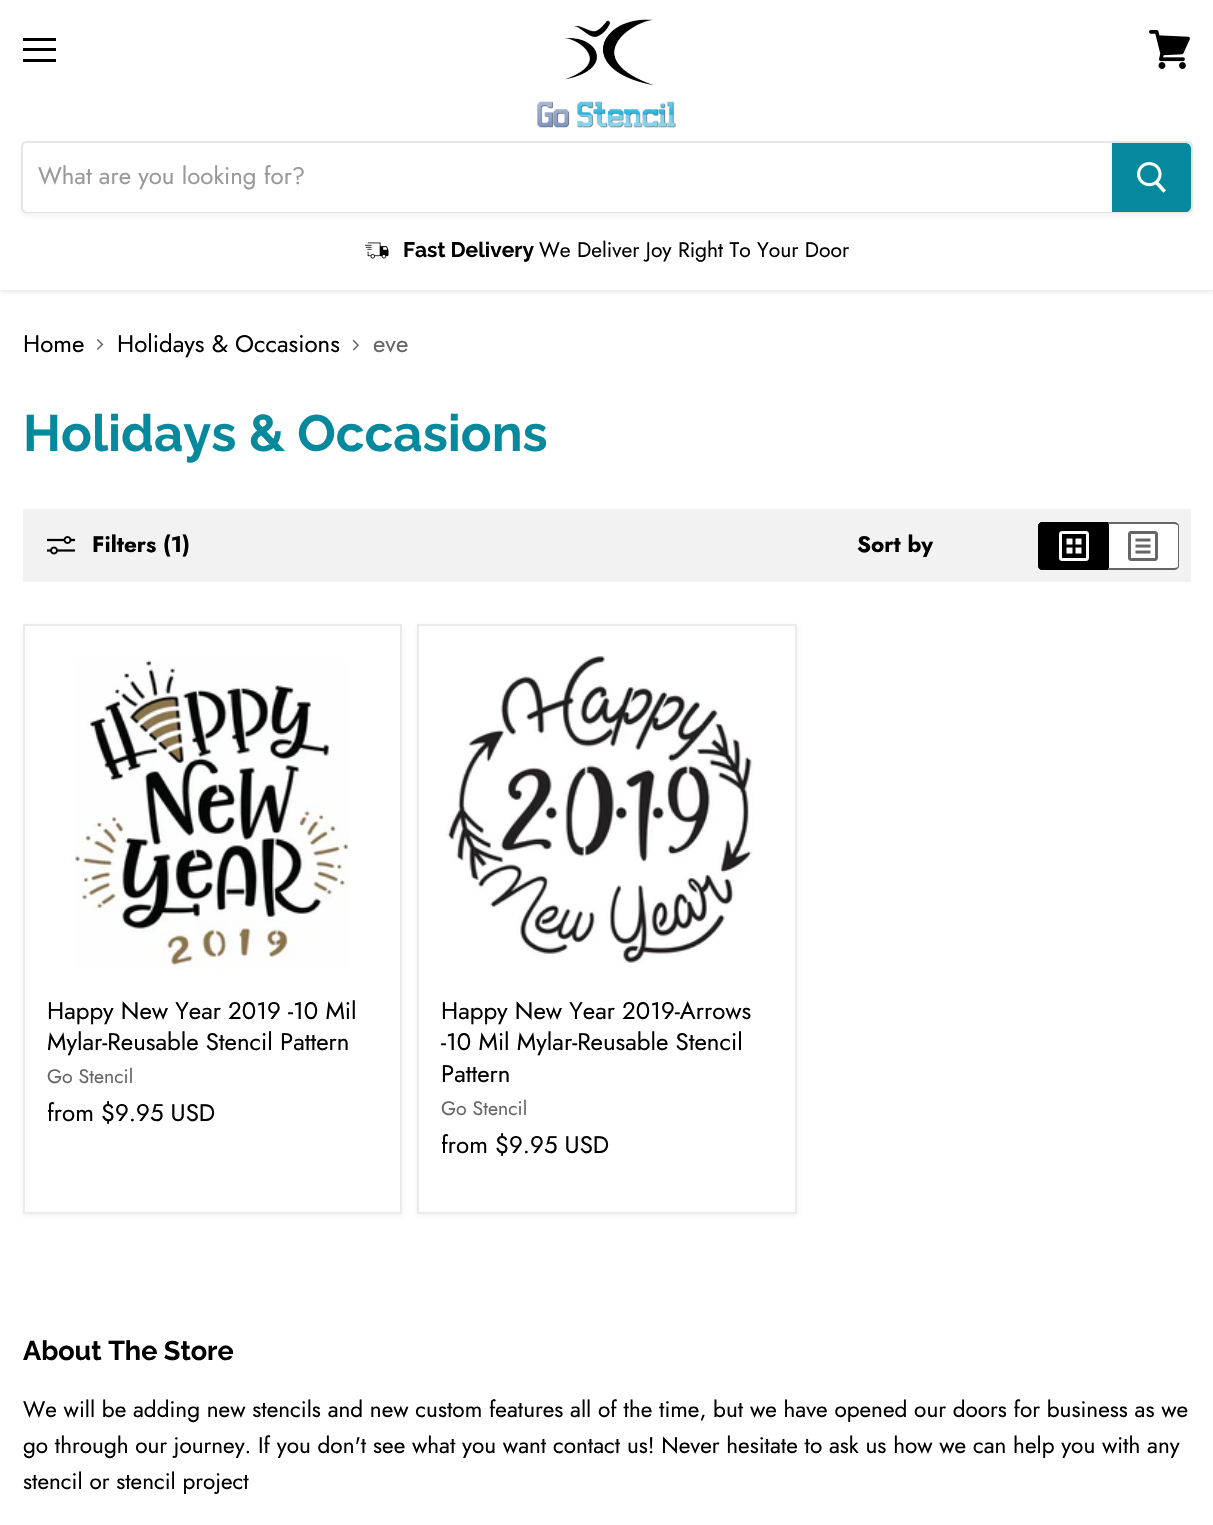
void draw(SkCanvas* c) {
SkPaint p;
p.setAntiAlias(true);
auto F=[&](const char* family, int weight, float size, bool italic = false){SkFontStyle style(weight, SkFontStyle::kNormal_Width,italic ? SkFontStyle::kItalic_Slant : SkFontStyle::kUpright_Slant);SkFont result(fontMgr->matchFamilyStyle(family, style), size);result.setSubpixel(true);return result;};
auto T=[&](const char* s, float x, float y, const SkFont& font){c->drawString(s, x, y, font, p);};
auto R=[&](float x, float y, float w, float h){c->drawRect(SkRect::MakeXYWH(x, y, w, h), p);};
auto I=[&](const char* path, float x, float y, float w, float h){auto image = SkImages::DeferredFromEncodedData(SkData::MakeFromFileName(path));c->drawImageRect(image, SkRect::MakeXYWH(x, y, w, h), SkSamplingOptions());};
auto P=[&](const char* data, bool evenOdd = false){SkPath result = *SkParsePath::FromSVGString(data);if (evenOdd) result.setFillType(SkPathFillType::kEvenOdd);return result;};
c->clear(0xffffffff);
p.setColor(0x407f7f7f);
p.setMaskFilter(SkMaskFilter::MakeBlur(kNormal_SkBlurStyle, 3));
c->drawRect(SkRect::MakeXYWH(0,2,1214,289),p);
p.setMaskFilter(nullptr);
p.setColor(0xffffffff);
R(0,0,1213,290);
p.setColor(0xff000000);
R(23,38,33,3);
R(23,48,33,3);
R(23,59,33,3);
I("1.png",1149,30,41,39);
I("2.png",537,19,139,109);
c->save();
c->clipPath(P("M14 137h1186v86h-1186zm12 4h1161c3.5 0 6 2.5 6 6v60c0 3.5-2.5 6-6 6h-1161c-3 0-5-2-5-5v-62c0-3 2-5 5-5z",true),true);
p.setColor(0x1c7f7f7f);
p.setMaskFilter(SkMaskFilter::MakeBlur(kNormal_SkBlurStyle, 2));
c->drawRoundRect(SkRect::MakeXYWH(21,144,1172,72),6,6,p);
p.setMaskFilter(nullptr);
c->restore();
p.setStroke(true);
p.setStrokeWidth(2);
p.setColor(0x337f7f7f);
c->drawPath(P("M26 142h1161c3 0 5 2 5 5v60c0 3-2 5-5 5h-1161c-2 0-4-2-4-4v-62c0-2 2-4 4-4z"),p);
p.setStroke(false);
p.setColor(0xffffffff);
c->drawPath(P("M28 143h1084v69h-1084c-3 0-5-2-5-5v-59c0-3 2-5 5-5z"),p);
auto f1 = F("Jost",400,24);
p.setColor(0xff999999);
T("What are you looking for?",38,184,f1);
p.setColor(0xff06899c);
c->drawPath(P("M1113 144h73c2 0 4 2 4 4v59c0 2-2 4-4 4h-73z"),p);
p.setStroke(true);
c->drawPath(P("M1113 144h73c2 0 4 2 4 4v59c0 2-2 4-4 4h-73z"),p);
I("3.png",1137,162,29,31);
I("4.png",365,242,24,17);
auto f2 = F("Raleway",700,21);
p.setStroke(false);
p.setColor(0xff000000);
T("Fast Delivery",403,257,f2);
auto f3 = F("Jost",400,21);
T("We Deliver Joy Right To Your Door",539,257,f3);
T("Home",23,352,f1);
I("5.png",97,339,7,11);
T("Holidays & Occasions",117,352,f1);
I("6.png",352,339,7,12);
p.setColor(0xff666666);
T("eve",373,352,f1);
auto f4 = F("Raleway",700,51);
p.setColor(0xff06899c);
T("Holidays & Occasions",23,451,f4);
p.setColor(0xfff2f2f2);
R(23,509,1168,73);
I("7.png",47,536,28,19);
auto f5 = F("Jost",700,22.5);
p.setColor(0xff000000);
T("Filters (1)",92,552,f5);
T("Sort by",857,552,f5);
c->drawPath(P("M1043 522h66v48h-66c-3 0-5-2-5-5v-38c0-3 2-5 5-5z"),p);
c->drawPath(P("M1042 522h66v48h-66c-2 0-4-2-4-4v-40c0-2 2-4 4-4zm0 2h66v44h-66c-1 0-2-1-2-2v-40c0-1 1-2 2-2z",true),p);
I("8.png",1059,531,30,30);
p.setColor(0xffffffff);
c->drawPath(P("M1109 522h65c3 0 5 2 5 5v38c0 3-2 5-5 5h-65z"),p);
p.setColor(0xff666666);
c->drawPath(P("M1108 522h66c3 0 5 2 5 4v40c0 2-2 4-5 4h-66zm0 2h66c2 0 4 1 4 2v40c0 1-2 2-4 2h-66z",true),p);
I("9.png",1128,531,30,30);
p.setColor(0x1c7f7f7f);
p.setMaskFilter(SkMaskFilter::MakeBlur(kNormal_SkBlurStyle, 3));
c->drawRect(SkRect::MakeXYWH(23,626,379,589),p);
p.setMaskFilter(nullptr);
p.setColor(0xffffffff);
c->drawRect(SkRect::MakeXYWH(24,625,377,588),p);
p.setStroke(true);
p.setColor(0xffebebeb);
c->drawRect(SkRect::MakeXYWH(24,625,377,588),p);
I("10.png",74,660,275,309);
p.setStroke(false);
p.setColor(0xff000000);
T("Happy New Year 2019 -10 Mil",47,1019,f1);
T("Mylar-Reusable Stencil Pattern",47,1050,f1);
auto f6 = F("Jost",400,19.5);
p.setColor(0xff666666);
T("Go Stencil",47,1083,f6);
p.setColor(0xff000000);
T("from $9.95 USD",47,1121,f1);
p.setColor(0x1c7f7f7f);
p.setMaskFilter(SkMaskFilter::MakeBlur(kNormal_SkBlurStyle, 3));
c->drawRect(SkRect::MakeXYWH(417,626,380,589),p);
p.setMaskFilter(nullptr);
p.setColor(0xffffffff);
c->drawRect(SkRect::MakeXYWH(418,625,378,588),p);
p.setStroke(true);
p.setColor(0xffebebeb);
c->drawRect(SkRect::MakeXYWH(418,625,378,588),p);
I("11.png",446,656,308,307);
p.setStroke(false);
p.setColor(0xff000000);
T("Happy New Year 2019-Arrows",441,1019,f1);
T("-10 Mil Mylar-Reusable Stencil",441,1050,f1);
T("Pattern",441,1082,f1);
p.setColor(0xff666666);
T("Go Stencil",441,1115,f6);
p.setColor(0xff000000);
T("from $9.95 USD",441,1153,f1);
auto f7 = F("Raleway",700,27);
T("About The Store",23,1360,f7);
auto f8 = F("Jost",400,22.5);
T("We will be adding new stencils and new custom features all of the time, but we have opened our doors for business as we",23,1417,f8);
T("go through our journey. If you don't see what you want contact us! Never hesitate to ask us how we can help you with any",23,1453,f8);
T("stencil or stencil project",23,1489,f8);
}
